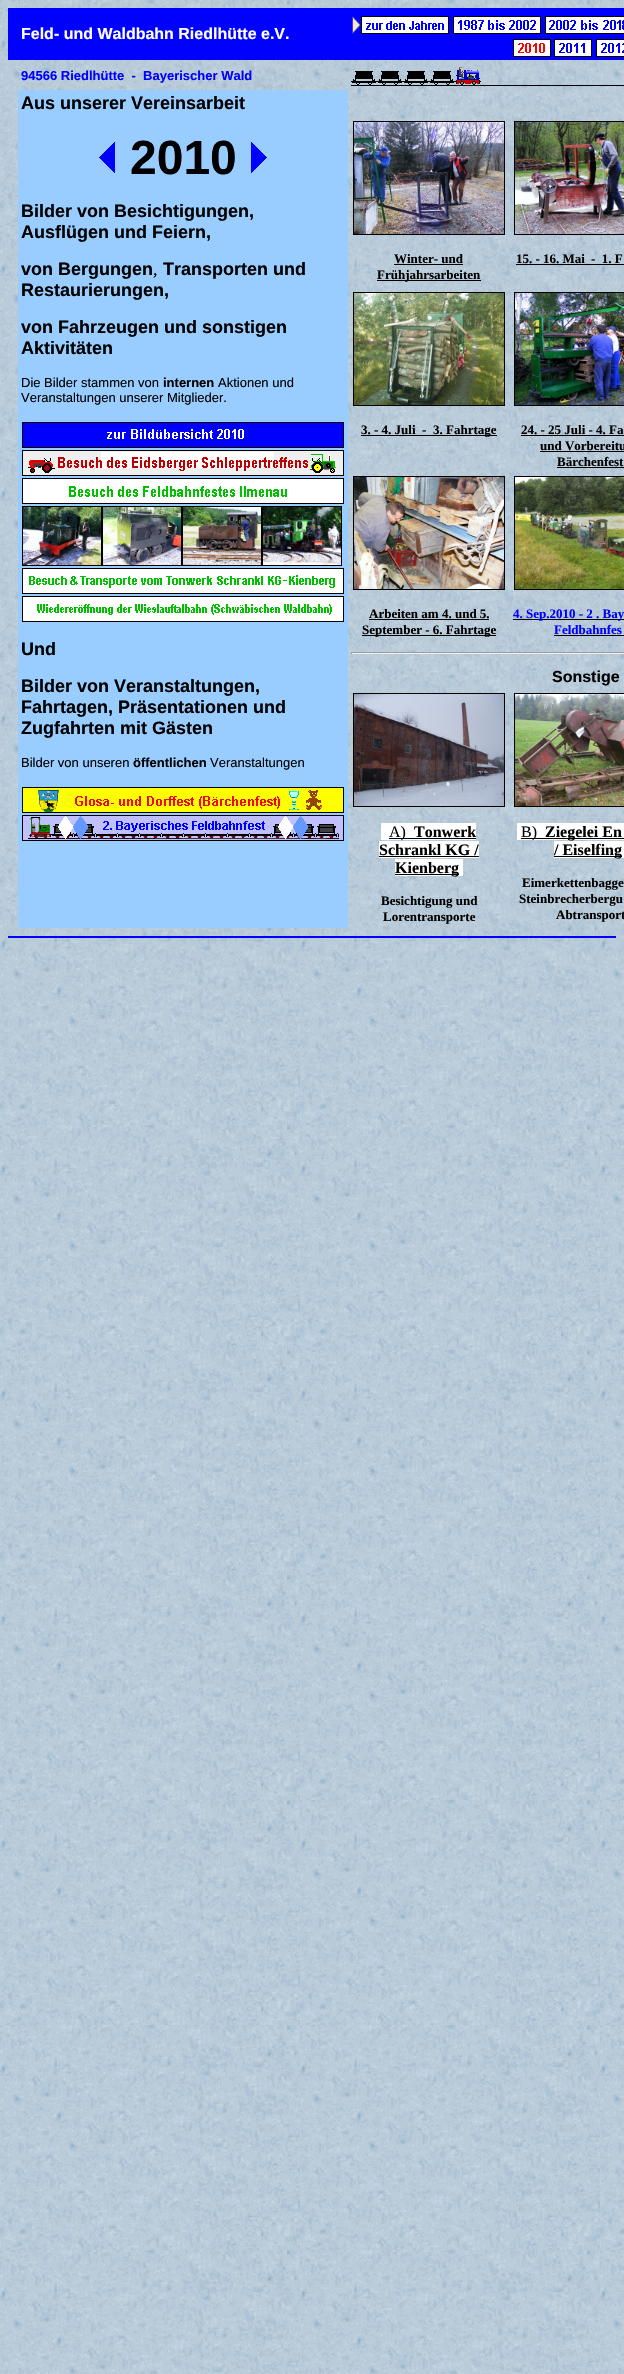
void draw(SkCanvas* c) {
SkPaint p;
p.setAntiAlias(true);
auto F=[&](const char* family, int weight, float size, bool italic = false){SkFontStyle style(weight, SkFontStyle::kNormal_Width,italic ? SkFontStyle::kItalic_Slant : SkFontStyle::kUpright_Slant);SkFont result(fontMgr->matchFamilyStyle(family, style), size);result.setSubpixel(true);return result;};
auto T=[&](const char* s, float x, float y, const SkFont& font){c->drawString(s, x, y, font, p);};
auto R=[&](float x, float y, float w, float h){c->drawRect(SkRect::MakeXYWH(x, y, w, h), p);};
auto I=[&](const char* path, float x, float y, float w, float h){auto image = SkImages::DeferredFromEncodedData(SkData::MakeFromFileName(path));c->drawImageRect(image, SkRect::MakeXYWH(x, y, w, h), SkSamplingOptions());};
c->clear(0xffffffff);
I("1.png",0,0,624,2374);
p.setColor(0xff0000ff);
R(8,8,616,52);
auto f1 = F("Liberation Sans",700,16);
p.setColor(0xffffffff);
T("Feld- und Waldbahn Riedlhütte e.V.",21,39,f1);
I("2.png",352,16,9,18);
p.setStroke(true);
p.setStrokeWidth(1);
p.setColor(0xff000000);
c->drawRect(SkRect::MakeXYWH(361.5,16.5,87,17),p);
c->drawRect(SkRect::MakeXYWH(453.5,16.5,87,17),p);
c->drawRect(SkRect::MakeXYWH(545.5,16.5,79,17),p);
I("3.png",362,17,86,16);
I("4.png",454,17,86,16);
I("5.png",546,17,78,16);
c->drawRect(SkRect::MakeXYWH(513.5,39.5,37,17),p);
c->drawRect(SkRect::MakeXYWH(554.5,39.5,37,17),p);
c->drawRect(SkRect::MakeXYWH(596.5,39.5,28,17),p);
I("6.png",514,40,36,16);
I("7.png",555,40,36,16);
I("8.png",597,40,27,16);
auto f2 = F("Liberation Sans",700,13);
p.setStroke(false);
p.setColor(0xff0000ff);
T("94566 Riedlhütte  -  Bayerischer Wald",21,80,f2);
I("9.png",351,67,273,19);
p.setColor(0xff99ccff);
R(18,90,330,838);
auto f3 = F("Liberation Sans",700,18);
p.setColor(0xff000000);
T("Aus unserer Vereinsarbeit",21,109,f3);
I("10.png",99,142,16,31);
auto f4 = F("Liberation Sans",700,48);
T("2010",130,174,f4);
I("11.png",251,142,16,31);
T("Bilder von Besichtigungen,",21,217,f3);
T("Ausflügen und Feiern,",21,238,f3);
T("von Bergungen",21,275,f3);
auto f5 = F("Liberation Serif",400,18);
T(",",153,275,f5);
T("Transporten und",163,275,f3);
T("Restaurierungen,",21,296,f3);
T("von Fahrzeugen und sonstigen",21,333,f3);
T("Aktivitäten",21,354,f3);
auto f6 = F("Liberation Sans",400,13);
T("Die Bilder stammen von",21,387,f6);
T("internen",163,387,f2);
T("Aktionen und",218,387,f6);
T("Veranstaltungen unserer Mitglieder.",21,402,f6);
p.setStroke(true);
c->drawRect(SkRect::MakeXYWH(22.5,422.5,321,25),p);
I("12.png",23,423,320,24);
c->drawRect(SkRect::MakeXYWH(22.5,450.5,321,25),p);
I("13.png",23,451,320,24);
c->drawRect(SkRect::MakeXYWH(22.5,478.5,321,25),p);
I("14.png",23,479,320,24);
c->drawRect(SkRect::MakeXYWH(22.5,506.5,79,59),p);
c->drawRect(SkRect::MakeXYWH(102.5,506.5,79,59),p);
c->drawRect(SkRect::MakeXYWH(182.5,506.5,79,59),p);
c->drawRect(SkRect::MakeXYWH(262.5,506.5,79,59),p);
I("15.png",23,507,78,58);
I("16.png",103,507,78,58);
I("17.png",183,507,78,58);
I("18.png",263,507,78,58);
c->drawRect(SkRect::MakeXYWH(22.5,568.5,321,25),p);
I("19.png",23,569,320,24);
c->drawRect(SkRect::MakeXYWH(22.5,596.5,321,25),p);
I("20.png",23,597,320,24);
p.setStroke(false);
T("Und",21,655,f3);
T("Bilder von Veranstaltungen,",21,692,f3);
T("Fahrtagen, Präsentationen und",21,713,f3);
T("Zugfahrten mit Gästen",21,734,f3);
T("Bilder von unseren",21,767,f6);
T("öffentlichen",133,767,f2);
T("Veranstaltungen",210,767,f6);
p.setStroke(true);
c->drawRect(SkRect::MakeXYWH(22.5,787.5,321,25),p);
I("21.png",23,788,320,24);
c->drawRect(SkRect::MakeXYWH(22.5,815.5,321,25),p);
I("22.png",23,816,320,24);
c->drawRect(SkRect::MakeXYWH(353.5,121.5,151,113),p);
I("23.png",354,122,150,112);
auto f7 = F("Liberation Serif",700,13);
p.setStroke(false);
T("Winter- und",394,263,f7);
R(394,264,69,1);
R(377,280,104,1);
T("Frühjahrsarbeiten",377,279,f7);
p.setStroke(true);
c->drawRect(SkRect::MakeXYWH(514.5,121.5,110,113),p);
I("24.png",515,122,109,112);
p.setStroke(false);
T("15. - 16. Mai",516,263,f7);
R(516,264,108,1);
T("-  1. F",591,263,f7);
p.setStroke(true);
c->drawRect(SkRect::MakeXYWH(353.5,292.5,151,113),p);
I("25.png",354,293,150,112);
p.setStroke(false);
T("3. - 4. Juli  -",361,434,f7);
R(361,435,136,1);
T("3. Fahrtage",433,434,f7);
p.setStroke(true);
c->drawRect(SkRect::MakeXYWH(514.5,292.5,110,113),p);
I("26.png",515,293,109,112);
p.setStroke(false);
T("24. - 25 Juli - 4. Fa",521,434,f7);
R(521,435,103,1);
T("und Vorbereitu",540,450,f7);
R(540,451,84,1);
T("Bärchenfest",557,466,f7);
R(557,467,67,1);
p.setStroke(true);
c->drawRect(SkRect::MakeXYWH(353.5,476.5,151,113),p);
I("27.png",354,477,150,112);
p.setStroke(false);
T("Arbeiten am 4. und 5.",369,618,f7);
R(369,619,120,1);
R(362,635,134,1);
T("September - 6. Fahrtage",362,634,f7);
p.setStroke(true);
c->drawRect(SkRect::MakeXYWH(514.5,476.5,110,113),p);
I("28.png",515,477,109,112);
p.setStroke(false);
R(513,619,111,1);
p.setColor(0xff0000ff);
T("4. Sep.2010 - 2 . Bay",513,618,f7);
T("Feldbahnfes",554,634,f7);
p.setColor(0xff000000);
R(554,635,70,1);
p.setColor(0xff9f9f9f);
R(351,652,273,1);
p.setColor(0xffeeeeee);
R(351,653,273,1);
p.setColor(0xff9f9f9f);
R(351,652,1,2);
p.setColor(0xff000000);
T("Sonstige",552,682,f1);
p.setStroke(true);
c->drawRect(SkRect::MakeXYWH(353.5,693.5,151,113),p);
I("29.png",354,694,150,112);
p.setStroke(false);
p.setColor(0xffffffff);
R(381,823,95,17);
p.setColor(0xff000000);
R(389,838,87,1);
auto f8 = F("Liberation Serif",400,16);
T("A)",389,837,f8);
auto f9 = F("Liberation Serif",700,16);
T("Tonwerk",414,837,f9);
p.setColor(0xffffffff);
R(379,841,100,17);
p.setColor(0xff000000);
T("Schrankl KG /",379,855,f9);
R(379,856,100,1);
p.setColor(0xffffffff);
R(395,859,68,17);
p.setColor(0xff000000);
R(395,874,64,1);
T("Kienberg",395,873,f9);
T("Besichtigung und",381,905,f7);
T("Lorentransporte",383,921,f7);
p.setStroke(true);
c->drawRect(SkRect::MakeXYWH(514.5,693.5,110,113),p);
I("30.png",515,694,109,112);
p.setStroke(false);
p.setColor(0xffffffff);
R(517,823,107,17);
p.setColor(0xff000000);
R(521,838,103,1);
T("B)",521,837,f8);
T("Ziegelei En",545,837,f9);
p.setColor(0xffffffff);
R(554,841,70,17);
p.setColor(0xff000000);
R(554,856,68,1);
T("/ Eiselfing",554,855,f9);
T("Eimerkettenbagge",522,887,f7);
T("Steinbrecherbergu",519,903,f7);
T("Abtransport",556,919,f7);
p.setColor(0xff0000ff);
R(8,936,608,2);
}
